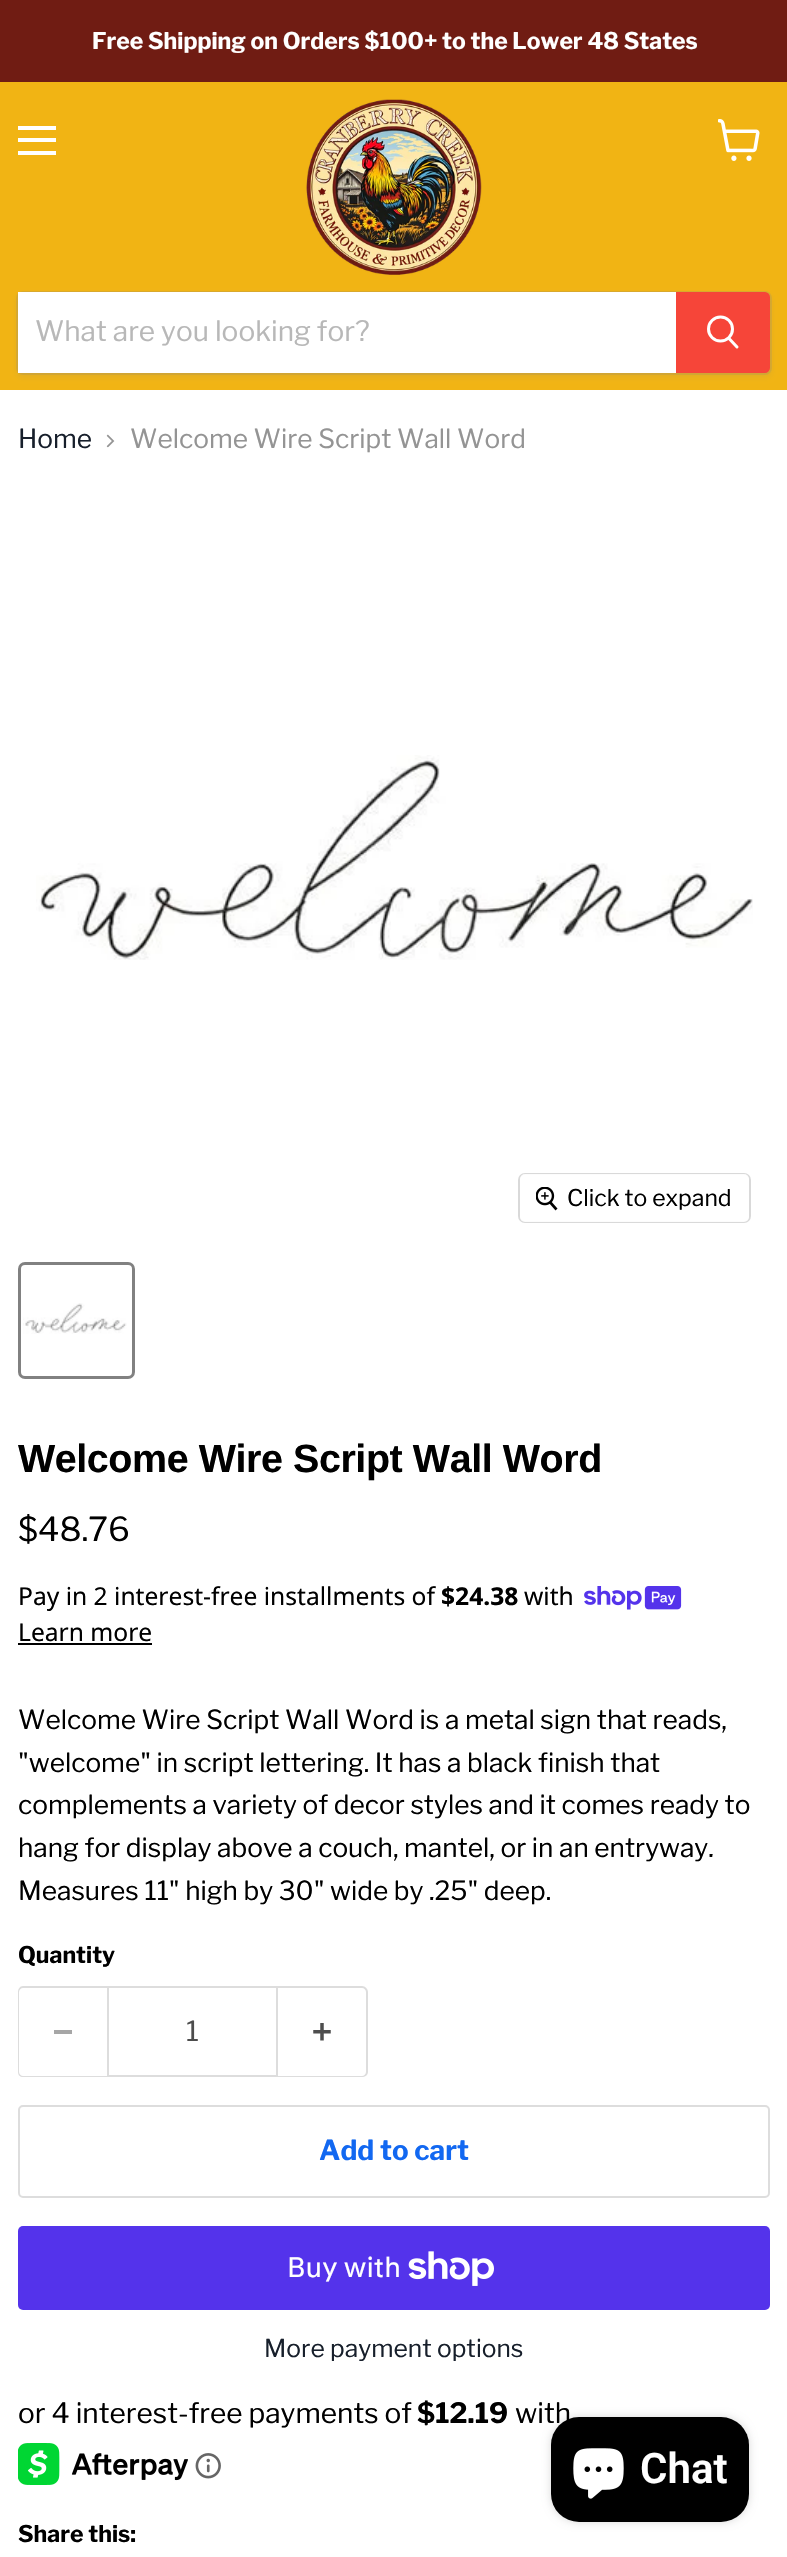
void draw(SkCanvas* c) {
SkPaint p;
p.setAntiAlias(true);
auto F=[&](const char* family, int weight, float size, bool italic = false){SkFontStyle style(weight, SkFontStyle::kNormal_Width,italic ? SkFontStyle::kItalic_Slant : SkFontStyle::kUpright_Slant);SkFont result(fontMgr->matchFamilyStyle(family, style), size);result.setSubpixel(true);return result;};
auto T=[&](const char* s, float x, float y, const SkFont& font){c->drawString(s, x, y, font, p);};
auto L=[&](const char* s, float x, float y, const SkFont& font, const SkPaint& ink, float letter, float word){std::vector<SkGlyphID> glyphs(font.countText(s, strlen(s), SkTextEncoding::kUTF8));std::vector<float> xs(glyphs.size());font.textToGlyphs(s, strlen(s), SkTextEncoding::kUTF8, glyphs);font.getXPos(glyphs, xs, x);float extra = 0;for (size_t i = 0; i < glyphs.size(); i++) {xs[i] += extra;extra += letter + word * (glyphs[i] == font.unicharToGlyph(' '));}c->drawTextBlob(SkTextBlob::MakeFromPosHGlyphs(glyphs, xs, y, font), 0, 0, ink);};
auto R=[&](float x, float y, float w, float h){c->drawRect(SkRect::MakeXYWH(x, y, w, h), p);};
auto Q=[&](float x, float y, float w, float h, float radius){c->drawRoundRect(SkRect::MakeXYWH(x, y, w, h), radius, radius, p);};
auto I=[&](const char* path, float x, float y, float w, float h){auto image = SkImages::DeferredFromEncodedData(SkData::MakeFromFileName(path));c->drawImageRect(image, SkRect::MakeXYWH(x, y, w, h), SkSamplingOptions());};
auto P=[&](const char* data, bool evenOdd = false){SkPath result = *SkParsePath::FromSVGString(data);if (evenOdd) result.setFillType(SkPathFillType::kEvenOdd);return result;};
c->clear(0xffffffff);
p.setColor(0xff701c13);
R(0,0,787,82);
auto f1 = F("Libre Franklin",700,23);
p.setColor(0xffffffff);
T("Free Shipping on Orders $100+ to the Lower 48 States",92,49,f1);
p.setColor(0xfff1b414);
R(0,82,787,308);
p.setColor(0xffffffff);
R(18,126,38,4);
R(18,138,38,4);
R(18,151,38,4);
I("1.png",718,119,42,42);
I("2.png",306,99,176,176);
p.setColor(0x1c808080);
p.setMaskFilter(SkMaskFilter::MakeBlur(kNormal_SkBlurStyle, 2.5));
c->drawRoundRect(SkRect::MakeXYWH(16,294,756,84),7,7,p);
p.setMaskFilter(nullptr);
p.setStroke(true);
p.setStrokeWidth(2);
p.setColor(0x33808080);
c->drawRoundRect(SkRect::MakeXYWH(17,292,754,82),6,6,p);
p.setStroke(false);
p.setColor(0xffffffff);
R(18,292,658,81);
auto f2 = F("Libre Franklin",400,28);
p.setColor(0xffb8b8b8);
T("What are you looking for?",35,341,f2);
p.setColor(0xfff64539);
c->drawPath(P("M677 293h88c2 0 4 2 4 4v71c0 2-2 4-4 4h-88z"),p);
p.setStroke(true);
c->drawPath(P("M677 293h88c2 0 4 2 4 4v71c0 2-2 4-4 4h-88z"),p);
p.setStrokeWidth(3);
p.setStrokeCap(SkPaint::kRound_Cap);
p.setColor(0xffffffff);
c->drawPath(P("M737 347l-8-8.5"),p);
p.setStrokeCap(SkPaint::kButt_Cap);
c->drawCircle(720.5,329,12,p);
auto f3 = F("Libre Franklin",400,26.25);
p.setStroke(false);
p.setColor(0xff171f2b);
T("Home",18,448,f3);
I("3.png",106,434,9,14);
p.setColor(0xff949494);
T("Welcome Wire Script Wall Word",130,448,f3);
I("4.png",36,755,717,205);
p.setStroke(true);
p.setStrokeWidth(2);
p.setColor(0xffd9d9d9);
c->drawRoundRect(SkRect::MakeXYWH(519,1174,231,48),6,6,p);
p.setStroke(false);
p.setColor(0xe6ffffff);
Q(520,1174,229,48,5);
I("5.png",536,1187,22,24);
auto f4 = F("Libre Franklin",400,23);
p.setColor(0xff000000);
T("Click to expand",567,1206,f4);
p.setStroke(true);
p.setStrokeWidth(3);
p.setColor(0xff818181);
c->drawRoundRect(SkRect::MakeXYWH(19.5,1263.5,114,114),5.5,5.5,p);
I("6.png",23,1303,104,31);
auto f5 = F("Arimo",700,39.4);
p.setStroke(false);
p.setColor(0xff000000);
L("Welcome Wire Script Wall Word",18,1472,f5,p,-.4,0);
auto f6 = F("Libre Franklin",400,33);
T("$48.76",18,1541,f6);
auto f7 = F("Noto Sans",400,24.6);
T("Pay in 2 interest-free installments of",18,1605,f7);
auto f8 = F("Noto Sans",700,24.6);
T("$24.38",441,1605,f8);
T("with",524,1605,f7);
I("7.png",584,1586,98,24);
T("Learn more",18,1641,f7);
R(18,1643,134,2);
T("Welcome Wire Script Wall Word is a metal sign that reads,",18,1729,f3);
T("\"welcome\" in script lettering. It has a black finish that",18,1772,f3);
T("complements a variety of decor styles and it comes ready to",18,1814,f3);
T("hang for display above a couch, mantel, or in an entryway.",18,1857,f3);
T("Measures 11\" high by 30\" wide by .25\" deep.",18,1900,f3);
T("Quantity",18,1963,f1);
p.setColor(0xffdddddd);
c->drawPath(P("M23 1986h84v91h-84c-3 0-5-2-5-5v-80c0-3 2-6 5-6zm0 2h84v88h-84c-2 0-4-2-4-4v-80c0-2 2-4 4-4z",true),p);
p.setColor(0xffa6a6a6);
R(54,2030,18,4);
p.setStroke(true);
p.setStrokeWidth(2);
p.setColor(0xffdddddd);
c->drawRect(SkRect::MakeXYWH(108,1987,169,89),p);
auto f9 = F("Libre Franklin",400,27.75);
p.setStroke(false);
p.setColor(0xff4d4d4d);
T("1",186,2041,f9);
p.setColor(0xffdddddd);
c->drawPath(P("M278 1986h84c3 0 6 3 6 6v80c0 3-3 5-6 5h-84zm0 2h84c2 0 4 2 4 4v80c0 2-2 4-4 4h-84z",true),p);
I("8.png",313,2023,18,18);
p.setStroke(true);
c->drawRoundRect(SkRect::MakeXYWH(19,2106,750,91),4,4,p);
auto f10 = F("Libre Franklin",700,27.75);
p.setStroke(false);
p.setColor(0xff1268f1);
T("Add to cart",319,2160,f10);
p.setColor(0xff5433eb);
Q(18,2226,752,84,5);
auto f11 = F("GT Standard",400,28);
p.setColor(0xffffffff);
T("Buy with",287,2277,f11);
I("9.png",408,2251,86,35);
auto f12 = F("Libre Franklin",400,24.6);
p.setColor(0xff171f2b);
T("More payment options",264,2357,f12);
p.setColor(0xff000000);
T("or 4 interest-free payments of",18,2423,f2);
auto f13 = F("Libre Franklin",700,28);
T("$12.19",417,2423,f13);
T("with",515,2423,f2);
I("10.png",18,2443,170,42);
I("11.png",195,2453,26,26);
T("Share this:",18,2542,f1);
p.setColor(0x26000000);
p.setMaskFilter(SkMaskFilter::MakeBlur(kNormal_SkBlurStyle, 4.5));
c->drawRoundRect(SkRect::MakeXYWH(551,2417,198,105),28,28,p);
p.setMaskFilter(nullptr);
p.setColor(0xff000000);
Q(551,2417,198,105,28);
I("12.png",573,2448,51,51);
auto f14 = F("Roboto",600,42);
p.setColor(0xffffffff);
T("Chat",640,2483,f14);
}
